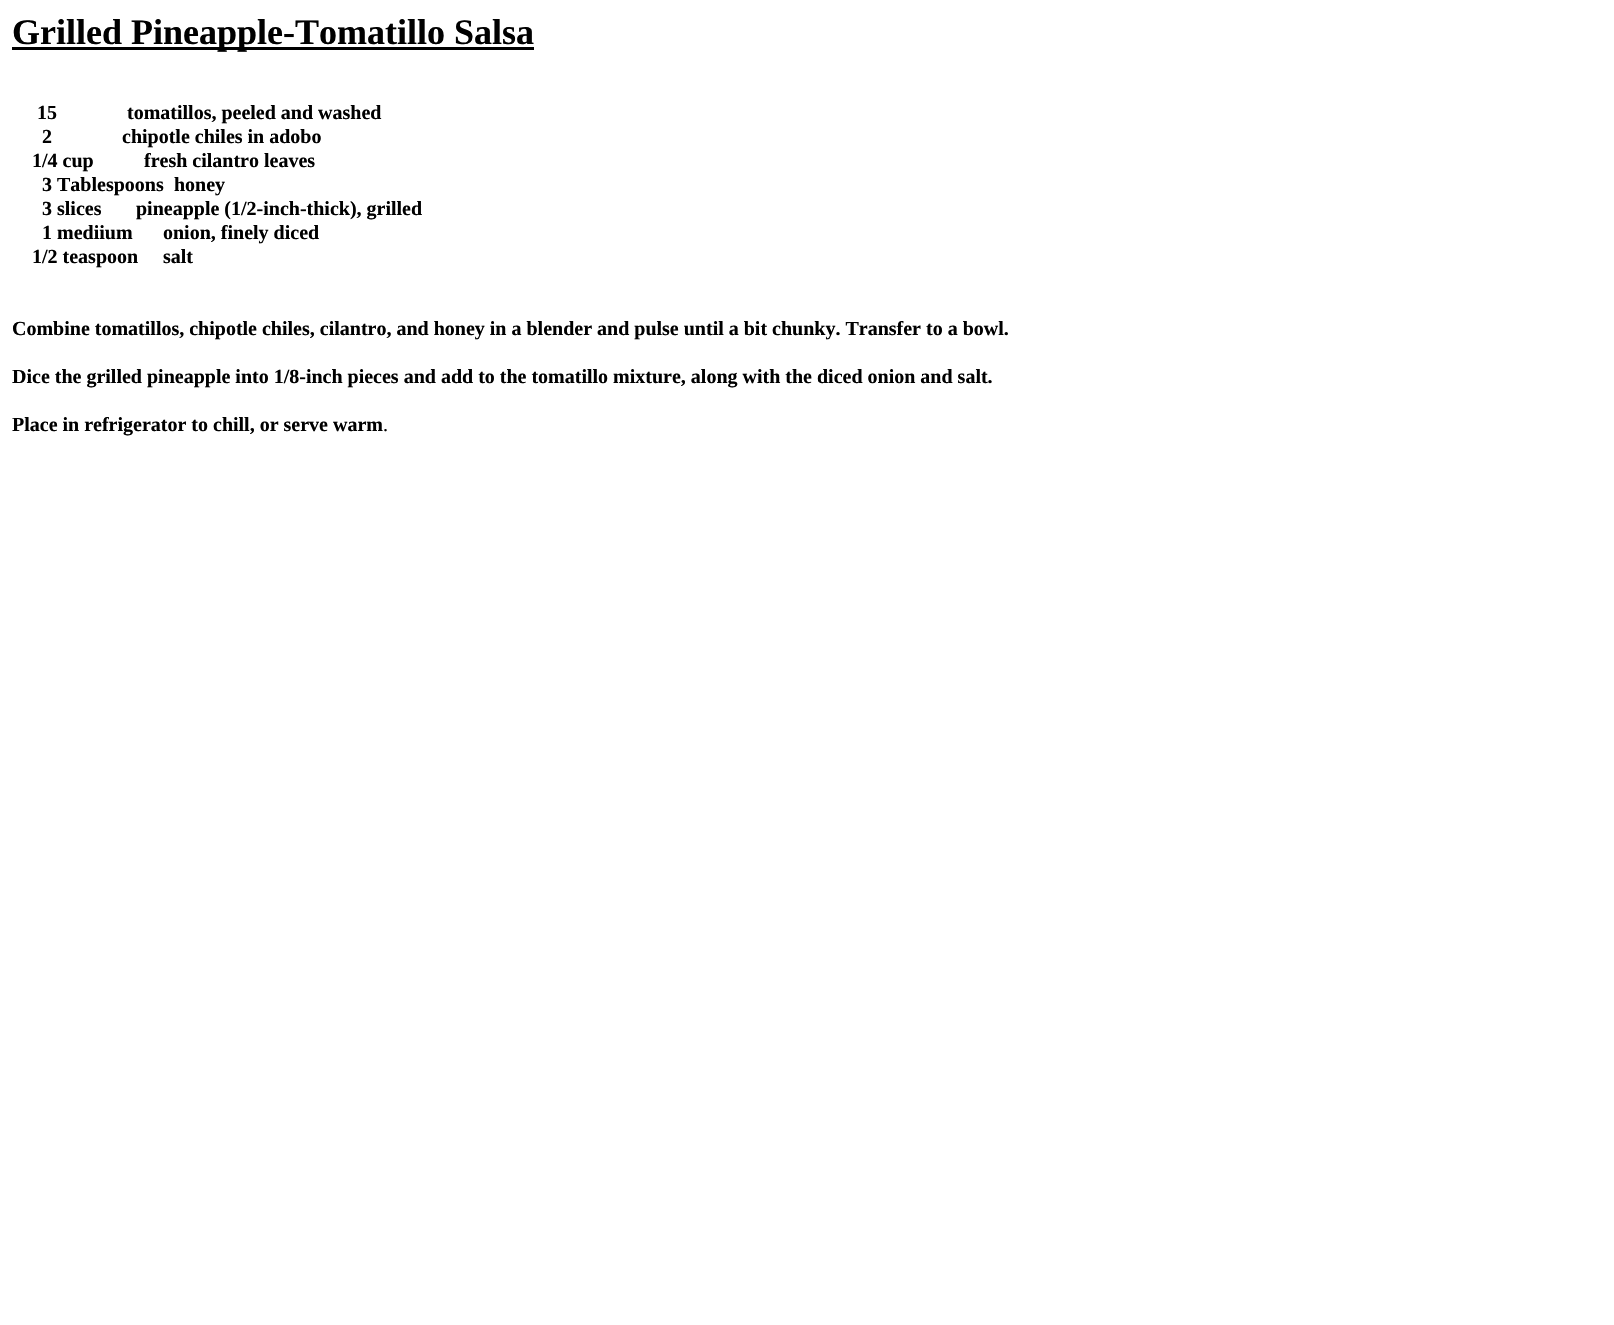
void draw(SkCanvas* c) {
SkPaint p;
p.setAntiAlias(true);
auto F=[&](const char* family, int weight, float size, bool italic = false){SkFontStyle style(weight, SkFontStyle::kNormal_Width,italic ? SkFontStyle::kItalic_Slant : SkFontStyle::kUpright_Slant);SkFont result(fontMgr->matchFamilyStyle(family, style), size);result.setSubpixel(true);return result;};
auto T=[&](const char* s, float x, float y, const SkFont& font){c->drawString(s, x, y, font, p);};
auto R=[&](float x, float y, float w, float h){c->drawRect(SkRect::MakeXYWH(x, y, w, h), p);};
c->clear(0xffffffff);
p.setColor(0xff000000);
R(12,47,522,3);
auto f1 = F("Liberation Serif",700,36);
T("Grilled Pineapple-Tomatillo Salsa",12,44,f1);
auto f2 = F("Liberation Serif",700,20);
T("15",37,119,f2);
T("tomatillos, peeled and washed",127,119,f2);
T("2",42,143,f2);
T("chipotle chiles in adobo",122,143,f2);
T("1/4 cup",32,167,f2);
T("fresh cilantro leaves",144,167,f2);
T("3 Tablespoons",42,191,f2);
T("honey",174,191,f2);
T("3 slices",42,215,f2);
T("pineapple (1/2-inch-thick), grilled",136,215,f2);
T("1 mediium",42,239,f2);
T("onion, finely diced",163,239,f2);
T("1/2 teaspoon",32,263,f2);
T("salt",163,263,f2);
T("Combine tomatillos, chipotle chiles, cilantro, and honey in a blender and pulse until a bit chunky. Transfer to a bowl.",12,335,f2);
T("Dice the grilled pineapple into 1/8-inch pieces and add to the tomatillo mixture, along with the diced onion and salt.",12,383,f2);
T("Place in refrigerator to chill, or serve warm",12,431,f2);
auto f3 = F("Liberation Serif",400,20);
T(".",383,431,f3);
}
